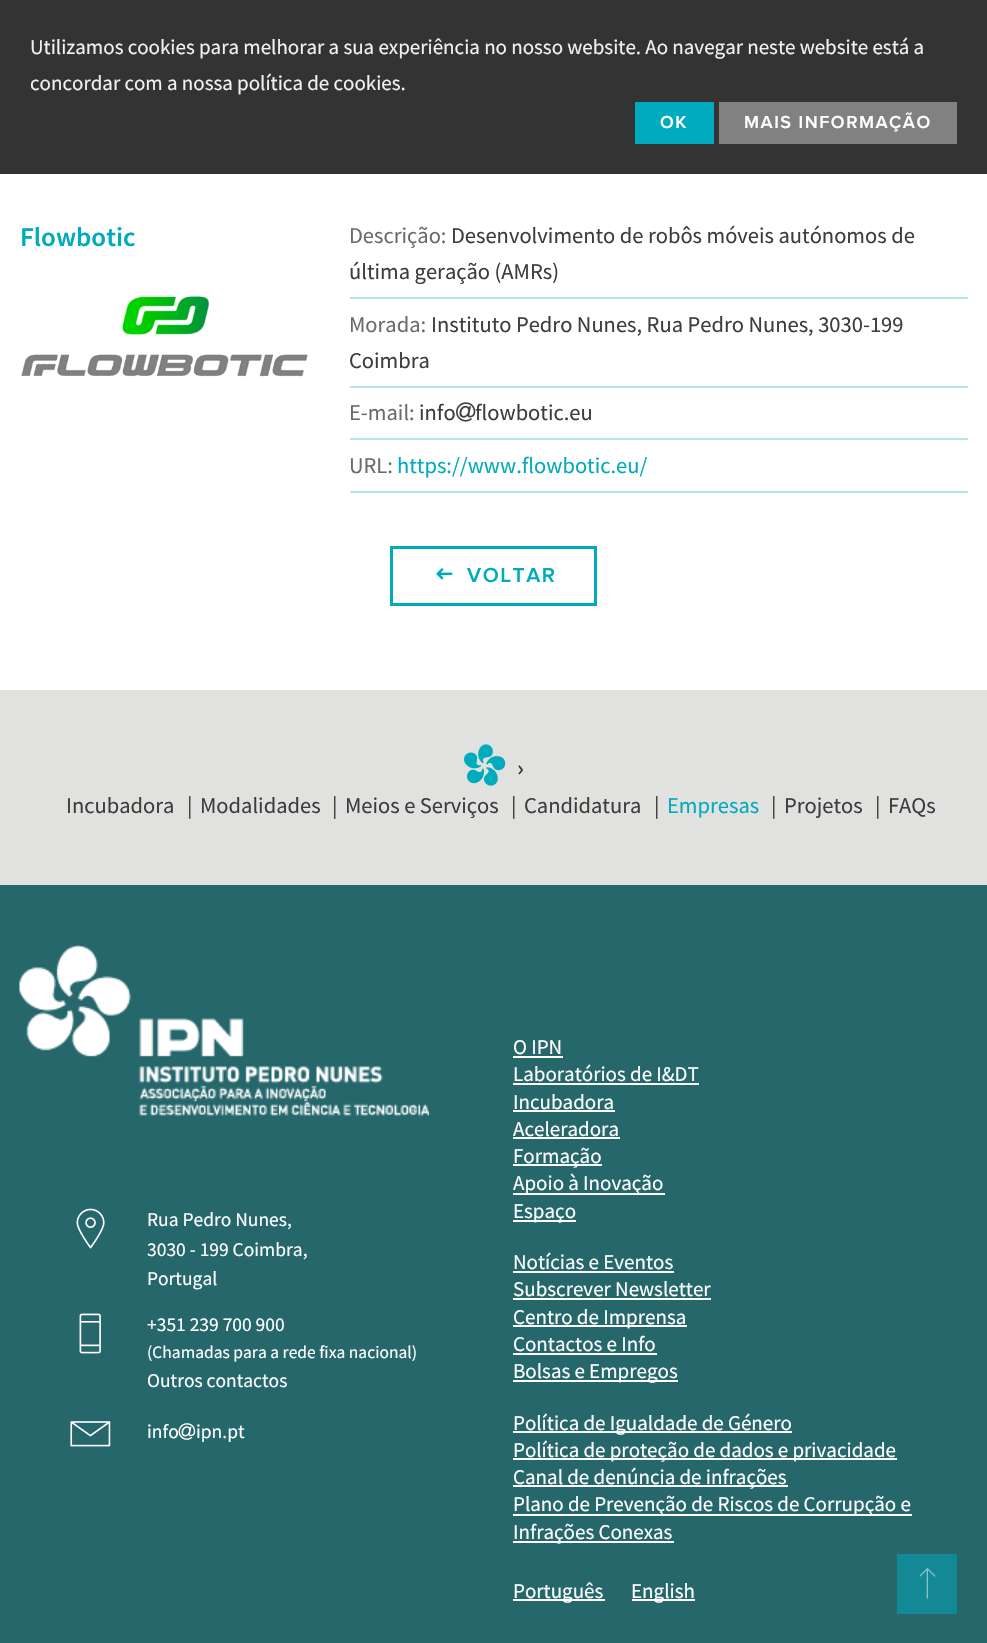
void draw(SkCanvas* c) {
SkPaint p;
p.setAntiAlias(true);
auto F=[&](const char* family, int weight, float size, bool italic = false){SkFontStyle style(weight, SkFontStyle::kNormal_Width,italic ? SkFontStyle::kItalic_Slant : SkFontStyle::kUpright_Slant);SkFont result(fontMgr->matchFamilyStyle(family, style), size);result.setSubpixel(true);return result;};
auto T=[&](const char* s, float x, float y, const SkFont& font){c->drawString(s, x, y, font, p);};
auto L=[&](const char* s, float x, float y, const SkFont& font, const SkPaint& ink, float letter, float word){std::vector<SkGlyphID> glyphs(font.countText(s, strlen(s), SkTextEncoding::kUTF8));std::vector<float> xs(glyphs.size());font.textToGlyphs(s, strlen(s), SkTextEncoding::kUTF8, glyphs);font.getXPos(glyphs, xs, x);float extra = 0;for (size_t i = 0; i < glyphs.size(); i++) {xs[i] += extra;extra += letter + word * (glyphs[i] == font.unicharToGlyph(' '));}c->drawTextBlob(SkTextBlob::MakeFromPosHGlyphs(glyphs, xs, y, font), 0, 0, ink);};
auto R=[&](float x, float y, float w, float h){c->drawRect(SkRect::MakeXYWH(x, y, w, h), p);};
auto I=[&](const char* path, float x, float y, float w, float h){auto image = SkImages::DeferredFromEncodedData(SkData::MakeFromFileName(path));c->drawImageRect(image, SkRect::MakeXYWH(x, y, w, h), SkSamplingOptions());};
c->clear(0xffffffff);
p.setColor(0xff333333);
R(0,0,987,174);
auto f1 = F("Source Sans Pro",400,21);
p.setColor(0xfff1f1f1);
T("Utilizamos cookies para melhorar a sua experiência no nosso website. Ao navegar neste website está a",30,54,f1);
T("concordar com a nossa política de cookies.",30,90,f1);
p.setColor(0xff00abbd);
R(635,102,79,42);
auto f2 = F("Proxima Nova",600,18);
p.setColor(0xffffffff);
L("OK",660,128,f2,p,1.5,0);
p.setColor(0xff818181);
R(719,102,238,42);
p.setColor(0xffffffff);
L("MAIS INFORMAÇÃO",744,128,f2,p,1.5,0);
auto f3 = F("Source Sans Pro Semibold",600,27);
p.setColor(0xff00abbd);
T("Flowbotic",20,246,f3);
I("1.png",21,296,287,81);
p.setColor(0xffb2e6ee);
R(350,297,618,2);
auto f4 = F("Source Sans Pro",400,22.5);
p.setColor(0xff6b6b6b);
T("Descrição:",349,243,f4);
p.setColor(0xff3d3d3d);
T("Desenvolvimento de robôs móveis autónomos de",451,243,f4);
T("última geração (AMRs)",349,279,f4);
p.setColor(0xffb2e6ee);
R(350,386,618,2);
p.setColor(0xff6b6b6b);
T("Morada:",349,332,f4);
p.setColor(0xff3d3d3d);
T("Instituto Pedro Nunes, Rua Pedro Nunes, 3030-199",431,332,f4);
T("Coimbra",349,368,f4);
p.setColor(0xffb2e6ee);
R(350,438,618,2);
p.setColor(0xff6b6b6b);
T("E-mail:",349,420,f4);
p.setColor(0xff3d3d3d);
T("info",419,420,f4);
I("2.png",456,402,20,20);
T("flowbotic.eu",475,420,f4);
p.setColor(0xffb2e6ee);
R(350,491,618,2);
p.setColor(0xff6b6b6b);
T("URL:",349,473,f4);
p.setColor(0xff00abbd);
T("https://www.flowbotic.eu/",397,473,f4);
p.setStroke(true);
p.setStrokeWidth(3);
c->drawRect(SkRect::MakeXYWH(391.5,547.5,204,57),p);
I("3.png",436,568,17,12);
auto f5 = F("Proxima Nova",600,21);
p.setStroke(false);
L("VOLTAR",467,582,f5,p,1.5,0);
p.setColor(0xffe1e1e0);
R(0,690,987,195);
I("4.png",464,744,42,42);
auto f6 = F("Source Sans Pro Semibold",600,24);
p.setColor(0xff3d3d3d);
T("›",517,776,f6);
T("Incubadora",66,813,f4);
T("|",187,813,f4);
T("Modalidades",200,813,f4);
T("|",332,813,f4);
T("Meios e Serviços",345,813,f4);
T("|",511,813,f4);
T("Candidatura",524,813,f4);
T("|",654,813,f4);
p.setColor(0xff00abbd);
T("Empresas",667,813,f4);
p.setColor(0xff3d3d3d);
T("|",771,813,f4);
T("Projetos",784,813,f4);
T("|",875,813,f4);
T("FAQs",888,813,f4);
p.setColor(0xff26676c);
R(0,885,987,758);
I("5.png",19,945,410,171);
I("6.png",76,1208,29,41);
auto f7 = F("Source Sans Pro",400,19.5);
p.setColor(0xffffffff);
T("Rua Pedro Nunes,",147,1226,f7);
T("3030 - 199 Coimbra,",147,1256,f7);
T("Portugal",147,1285,f7);
I("7.png",79,1313,22,41);
T("+351 239 700 900",147,1331,f7);
auto f8 = F("Source Sans Pro",400,17.5);
T("(Chamadas para a rede fixa nacional)",147,1358,f8);
T("Outros contactos",147,1387,f7);
I("8.png",70,1421,41,26);
T("info",147,1438,f7);
I("9.png",178,1423,18,17);
T("ipn.pt",196,1438,f7);
T("O IPN",513,1054,f1);
R(513,1056,50,2);
T("Laboratórios de I&DT",513,1081,f1);
R(513,1083,186,2);
T("Incubadora",513,1109,f1);
R(513,1110,102,2);
T("Aceleradora",513,1136,f1);
R(513,1137,107,2);
R(513,1164,89,2);
T("Formação",513,1163,f1);
R(513,1193,152,2);
T("Apoio à Inovação",513,1190,f1);
R(513,1220,63,2);
T("Espaço",513,1218,f1);
T("Notícias e Eventos",513,1269,f1);
R(513,1271,161,2);
T("Subscrever Newsletter",513,1296,f1);
R(513,1298,198,2);
R(513,1325,174,2);
T("Centro de Imprensa",513,1324,f1);
T("Contactos e Info",513,1351,f1);
R(513,1353,144,2);
R(513,1380,165,2);
T("Bolsas e Empregos",513,1378,f1);
R(513,1431,279,2);
T("Política de Igualdade de Género",513,1430,f1);
R(513,1458,384,2);
T("Política de proteção de dados e privacidade",513,1457,f1);
R(513,1485,275,2);
T("Canal de denúncia de infrações",513,1484,f1);
R(513,1514,399,2);
T("Plano de Prevenção de Riscos de Corrupção e",513,1511,f1);
R(513,1541,161,2);
T("Infrações Conexas",513,1539,f1);
R(513,1599,92,2);
T("Português",513,1598,f1);
R(632,1599,63,2);
T("English",631,1598,f1);
p.setColor(0xff138995);
R(897,1554,60,60);
I("10.png",919,1568,17,31);
}
